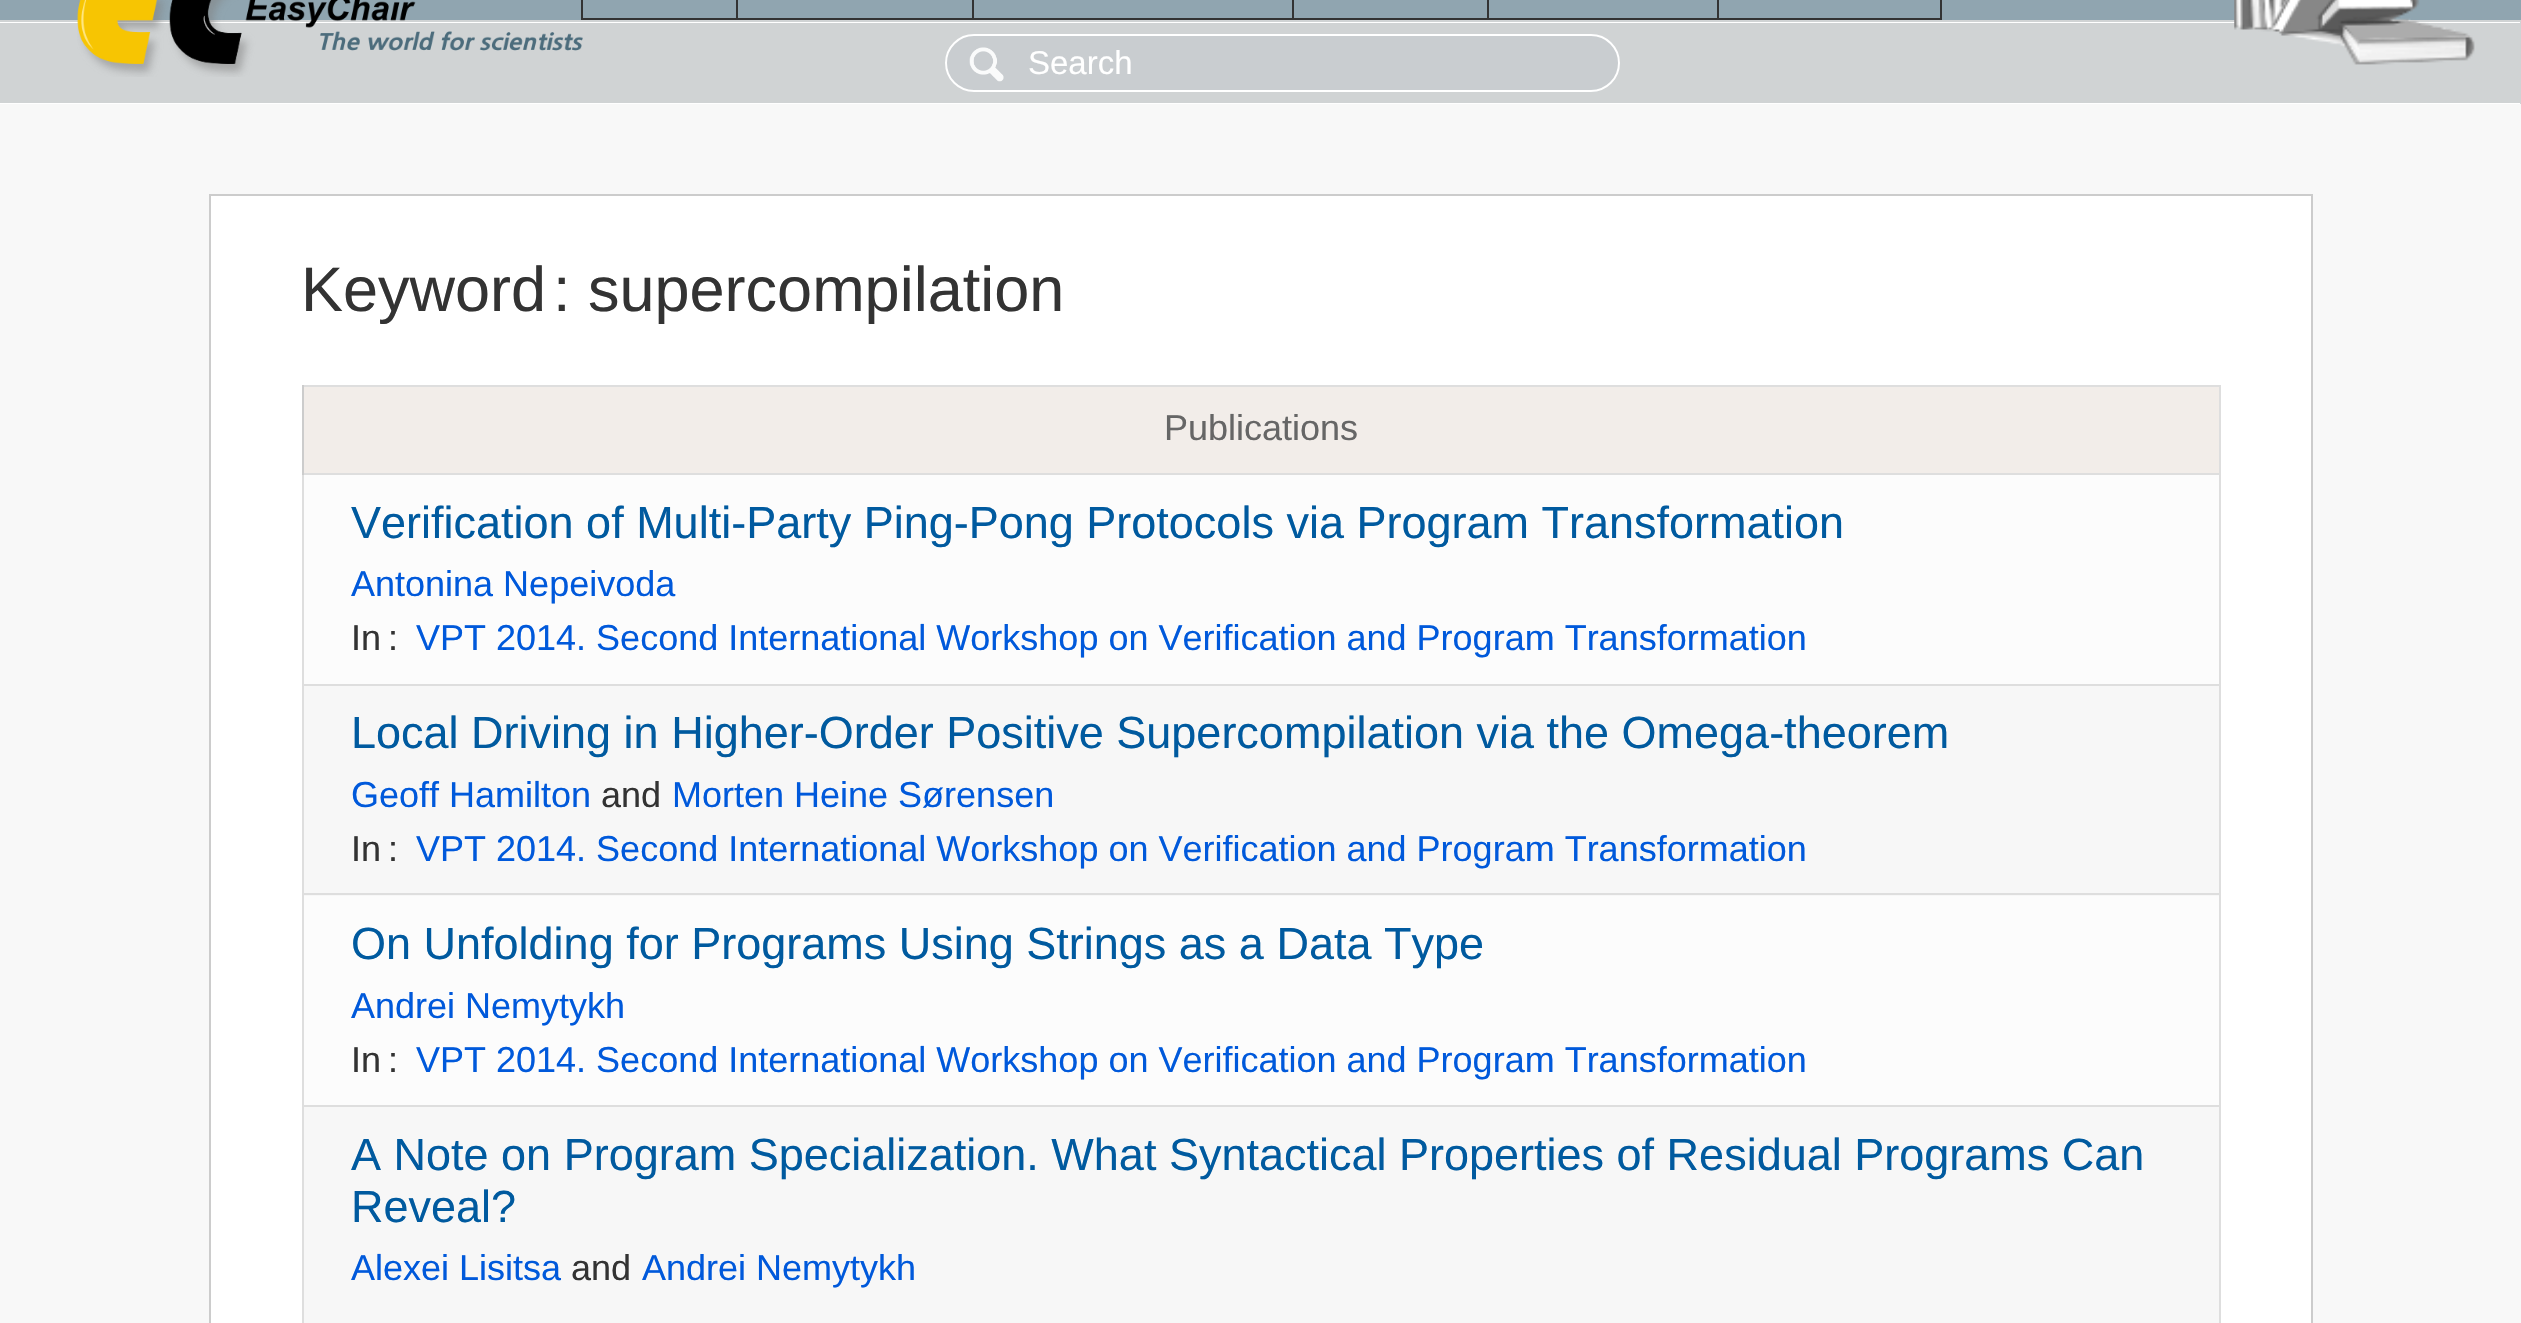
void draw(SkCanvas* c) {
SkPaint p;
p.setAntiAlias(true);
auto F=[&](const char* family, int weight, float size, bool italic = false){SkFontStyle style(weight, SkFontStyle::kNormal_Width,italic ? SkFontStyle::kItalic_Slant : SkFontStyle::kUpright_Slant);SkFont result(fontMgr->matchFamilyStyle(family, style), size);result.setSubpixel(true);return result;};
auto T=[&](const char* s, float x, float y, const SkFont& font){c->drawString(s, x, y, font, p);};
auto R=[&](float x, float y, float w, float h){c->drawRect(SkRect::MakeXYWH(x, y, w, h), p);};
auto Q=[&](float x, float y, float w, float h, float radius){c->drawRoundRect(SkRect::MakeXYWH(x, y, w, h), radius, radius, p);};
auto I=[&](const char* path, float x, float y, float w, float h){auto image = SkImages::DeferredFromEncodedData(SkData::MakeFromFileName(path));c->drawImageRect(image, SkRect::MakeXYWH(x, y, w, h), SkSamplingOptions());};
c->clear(0xffffffff);
p.setColor(0xff90a5b0);
R(0,0,2521,20);
p.setColor(0xff333333);
R(1940,0,2,20);
R(1717,18,225,2);
R(1717,0,2,20);
R(1487,18,232,2);
R(1487,0,2,20);
R(1292,18,198,2);
R(1292,0,2,20);
R(972,18,322,2);
R(972,0,2,20);
R(736,18,238,2);
R(736,0,2,20);
p.setColor(0xffd0d3d4);
R(0,23,2520,78);
R(0,20,2521,2);
I("1.png",77,0,506,77);
p.setColor(0xff333333);
R(581,18,157,2);
R(581,0,2,20);
p.setColor(0xffd0d3d4);
R(2520,20,1,84);
R(0,101,2521,2);
p.setColor(0xffc9cdd0);
Q(945,34,675,58,29);
I("2.png",969,47,35,35);
p.setStroke(true);
p.setStrokeWidth(2);
p.setColor(0xffffffff);
c->drawRoundRect(SkRect::MakeXYWH(946,35,673,56),28,28,p);
auto f1 = F("Liberation Sans",400,33);
p.setStroke(false);
T("Search",1028,74,f1);
I("3.png",2234,0,241,65);
p.setColor(0xfff8f8f8);
R(0,104,2521,1219);
p.setColor(0xffffffff);
c->drawRect(SkRect::MakeXYWH(210,195,2102,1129),p);
p.setStroke(true);
p.setColor(0xffcccccc);
c->drawRect(SkRect::MakeXYWH(210,195,2102,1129),p);
auto f2 = F("Liberation Sans",400,63);
p.setStroke(false);
p.setColor(0xff333333);
T("Keyword",301,311,f2);
T(":",553,311,f2);
T("supercompilation",588,311,f2);
p.setColor(0xffdedede);
R(302,385,1919,2);
R(2219,385,2,938);
R(302,475,2,848);
p.setColor(0xfff2ede9);
R(304,387,1915,86);
p.setColor(0xffdedede);
R(302,473,1919,2);
p.setColor(0xffcccccc);
R(302,385,2,90);
auto f3 = F("Liberation Sans",400,36);
p.setColor(0xff666666);
T("Publications",1164,440,f3);
p.setColor(0xfffcfcfc);
R(304,475,1915,209);
p.setColor(0xffdedede);
R(302,684,1919,2);
auto f4 = F("Liberation Sans",400,45);
p.setColor(0xff005a9f);
T("Verification of Multi-Party Ping-Pong Protocols via Program Transformation",351,538,f4);
p.setColor(0xff0059db);
T("Antonina Nepeivoda",351,596,f3);
p.setColor(0xff333333);
T("In",351,650,f3);
T(":",388,650,f3);
p.setColor(0xff0059db);
T("VPT 2014. Second International Workshop on Verification and Program Transformation",416,650,f3);
p.setColor(0xfff7f7f7);
R(304,686,1915,210);
p.setColor(0xffdedede);
R(302,893,1919,2);
p.setColor(0xff005a9f);
T("Local Driving in Higher-Order Positive Supercompilation via the Omega-theorem",351,748,f4);
p.setColor(0xff0059db);
T("Geoff Hamilton",351,807,f3);
p.setColor(0xff333333);
T("and",601,807,f3);
p.setColor(0xff0059db);
T("Morten Heine Sørensen",672,807,f3);
p.setColor(0xff333333);
T("In",351,861,f3);
T(":",388,861,f3);
p.setColor(0xff0059db);
T("VPT 2014. Second International Workshop on Verification and Program Transformation",416,861,f3);
p.setColor(0xfffcfcfc);
R(304,896,1915,209);
p.setColor(0xffdedede);
R(302,1105,1919,2);
p.setColor(0xff005a9f);
T("On Unfolding for Programs Using Strings as a Data Type",351,959,f4);
p.setColor(0xff0059db);
T("Andrei Nemytykh",351,1018,f3);
p.setColor(0xff333333);
T("In",351,1072,f3);
T(":",388,1072,f3);
p.setColor(0xff0059db);
T("VPT 2014. Second International Workshop on Verification and Program Transformation",416,1072,f3);
p.setColor(0xfff7f7f7);
R(304,1107,1915,216);
p.setColor(0xff005a9f);
T("A Note on Program Specialization. What Syntactical Properties of Residual Programs Can",351,1170,f4);
T("Reveal?",351,1222,f4);
p.setColor(0xff0059db);
T("Alexei Lisitsa",351,1280,f3);
p.setColor(0xff333333);
T("and",571,1280,f3);
p.setColor(0xff0059db);
T("Andrei Nemytykh",642,1280,f3);
}
